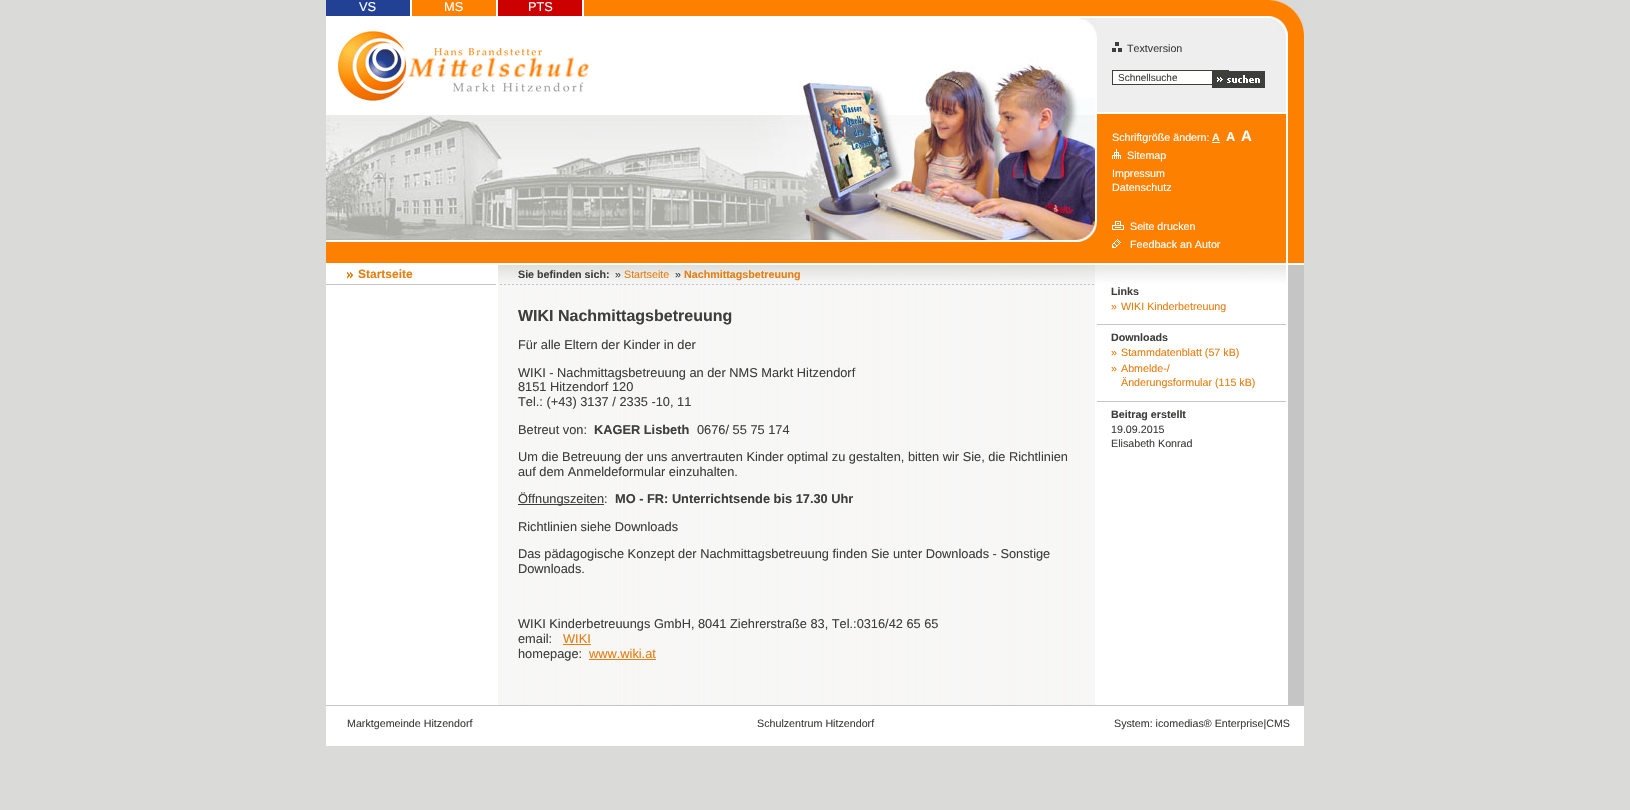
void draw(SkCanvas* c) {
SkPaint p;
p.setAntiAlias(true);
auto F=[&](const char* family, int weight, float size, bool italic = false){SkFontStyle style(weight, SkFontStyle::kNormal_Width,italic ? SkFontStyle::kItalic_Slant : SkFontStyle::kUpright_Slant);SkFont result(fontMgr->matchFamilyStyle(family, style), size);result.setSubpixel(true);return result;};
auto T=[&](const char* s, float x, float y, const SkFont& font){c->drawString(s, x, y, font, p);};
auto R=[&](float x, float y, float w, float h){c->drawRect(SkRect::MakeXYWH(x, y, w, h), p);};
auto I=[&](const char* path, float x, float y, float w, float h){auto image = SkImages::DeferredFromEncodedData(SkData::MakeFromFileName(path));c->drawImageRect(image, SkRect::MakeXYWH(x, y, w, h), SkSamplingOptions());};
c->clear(0xffdadad8);
p.setColor(0xffffffff);
R(326,17,931,1);
I("1.png",1257,0,47,263);
p.setColor(0xffc5c5c5);
R(326,705,978,1);
p.setColor(0xff224194);
R(326,0,84,16);
p.setColor(0xffffffff);
R(410,0,2,17);
R(326,16,86,1);
auto f1 = F("Liberation Sans",400,12.8);
T("VS",359,11,f1);
p.setColor(0xfffe8000);
R(412,0,84,16);
p.setColor(0xffffffff);
R(496,0,2,17);
R(412,16,86,1);
T("MS",444,11,f1);
p.setColor(0xffcc0000);
R(498,0,84,16);
p.setColor(0xffffffff);
R(582,0,2,17);
R(498,16,771,1);
T("PTS",528,11,f1);
p.setColor(0xfffe8000);
R(584,0,685,16);
R(1097,114,189,149);
R(326,242,771,21);
I("2.png",326,18,771,224);
I("3.png",338,31,251,70);
p.setColor(0xffeeeeee);
R(1097,18,175,94);
I("4.png",1112,42,10,10);
auto f2 = F("Liberation Sans",400,10.7);
p.setColor(0xff3e3f3c);
T("Textversion",1127,52,f2);
p.setColor(0xffffffff);
R(1097,112,189,2);
R(1113,71,99,13);
p.setStroke(true);
p.setStrokeWidth(1);
p.setColor(0xff3c413a);
c->drawRect(SkRect::MakeXYWH(1112.5,70.5,116,14),p);
auto f3 = F("Liberation Sans",400,10);
p.setStroke(false);
p.setColor(0xff3e3f3c);
T("Schnellsuche",1118,81,f3);
I("5.png",1212,71,53,17);
p.setColor(0xffffffff);
T("Schriftgröße ändern:",1112,141,f2);
auto f4 = F("Liberation Sans",700,10.7);
T("A",1212,141,f4);
R(1212,142,8,1);
auto f5 = F("Liberation Sans",700,12.8);
T("A",1226,141,f5);
auto f6 = F("Liberation Sans",700,15);
T("A",1241,141,f6);
I("6.png",1112,149,9,10);
T("Sitemap",1127,159,f2);
T("Impressum",1112,177,f2);
T("Datenschutz",1112,191,f2);
I("7.png",1112,221,12,9);
T("Seite drucken",1130,230,f2);
I("8.png",1112,239,9,9);
T("Feedback an Autor",1130,248,f2);
R(326,263,978,2);
R(326,265,172,440);
I("9.png",498,265,806,440);
I("10.png",347,272,6,7);
p.setColor(0xffc5c5c5);
R(326,284,170,1);
auto f7 = F("Liberation Sans",700,12);
p.setColor(0xffe67d0f);
T("Startseite",358,278,f7);
I("11.png",498,265,788,19);
p.setColor(0xff3e3f3c);
T("Sie befinden sich:",518,278,f4);
T("»",615,278,f2);
p.setColor(0xffe67d0f);
T("Startseite",624,278,f2);
p.setColor(0xff3e3f3c);
T("»",675,278,f2);
p.setColor(0xffe67d0f);
T("Nachmittagsbetreuung",684,278,f4);
I("12.png",500,284,594,1);
auto f8 = F("Liberation Sans",700,16);
p.setColor(0xff3e3f3c);
T("WIKI Nachmittagsbetreuung",518,321,f8);
T("Für alle Eltern der Kinder in der",518,349,f1);
T("WIKI - Nachmittagsbetreuung an der NMS Markt Hitzendorf",518,377,f1);
T("8151 Hitzendorf 120",518,391,f1);
T("Tel.: (+43) 3137 / 2335 -10, 11",518,406,f1);
T("Betreut von:",518,434,f1);
T("KAGER Lisbeth",594,434,f5);
T("0676/ 55 75 174",697,434,f1);
T("Um die Betreuung der uns anvertrauten Kinder optimal zu gestalten, bitten wir Sie, die Richtlinien",518,461,f1);
T("auf dem Anmeldeformular einzuhalten.",518,476,f1);
p.setColor(0xff3c3e3c);
R(518,504,86,1);
p.setColor(0xff3e3f3c);
T("Öffnungszeiten:",518,503,f1);
T("MO - FR: Unterrichtsende bis 17.30 Uhr",615,503,f5);
T("Richtlinien siehe Downloads",518,531,f1);
T("Das pädagogische Konzept der Nachmittagsbetreuung finden Sie unter Downloads - Sonstige",518,558,f1);
T("Downloads.",518,573,f1);
T("WIKI Kinderbetreuungs GmbH, 8041 Ziehrerstraße 83, Tel.:0316/42 65 65",518,628,f1);
T("email:",518,643,f1);
p.setColor(0xffe67d0f);
T("WIKI",563,643,f1);
R(563,644,28,1);
p.setColor(0xff3e3f3c);
T("homepage:",518,658,f1);
p.setColor(0xffe67d0f);
T("www.wiki.at",589,658,f1);
R(589,659,67,1);
p.setColor(0xffc5c5c5);
R(1097,324,189,1);
p.setColor(0xff3e3f3c);
T("Links",1111,295,f4);
p.setColor(0xffe67d0f);
T("»",1111,310,f2);
T("WIKI Kinderbetreuung",1121,310,f2);
p.setColor(0xffc5c5c5);
R(1097,401,189,1);
p.setColor(0xff3e3f3c);
T("Downloads",1111,341,f4);
p.setColor(0xffe67d0f);
T("»",1111,356,f2);
T("Stammdatenblatt (57 kB)",1121,356,f2);
T("»",1111,372,f2);
T("Abmelde-/",1121,372,f2);
T("Änderungsformular (115 kB)",1121,386,f2);
p.setColor(0xff3e3f3c);
T("Beitrag erstellt",1111,418,f4);
T("19.09.2015",1111,433,f2);
T("Elisabeth Konrad",1111,447,f2);
p.setColor(0xffffffff);
R(326,706,978,40);
p.setColor(0xff3e3f3c);
T("Marktgemeinde Hitzendorf",347,727,f2);
T("Schulzentrum Hitzendorf",757,727,f2);
T("System: icomedias® Enterprise|CMS",1114,727,f2);
}
